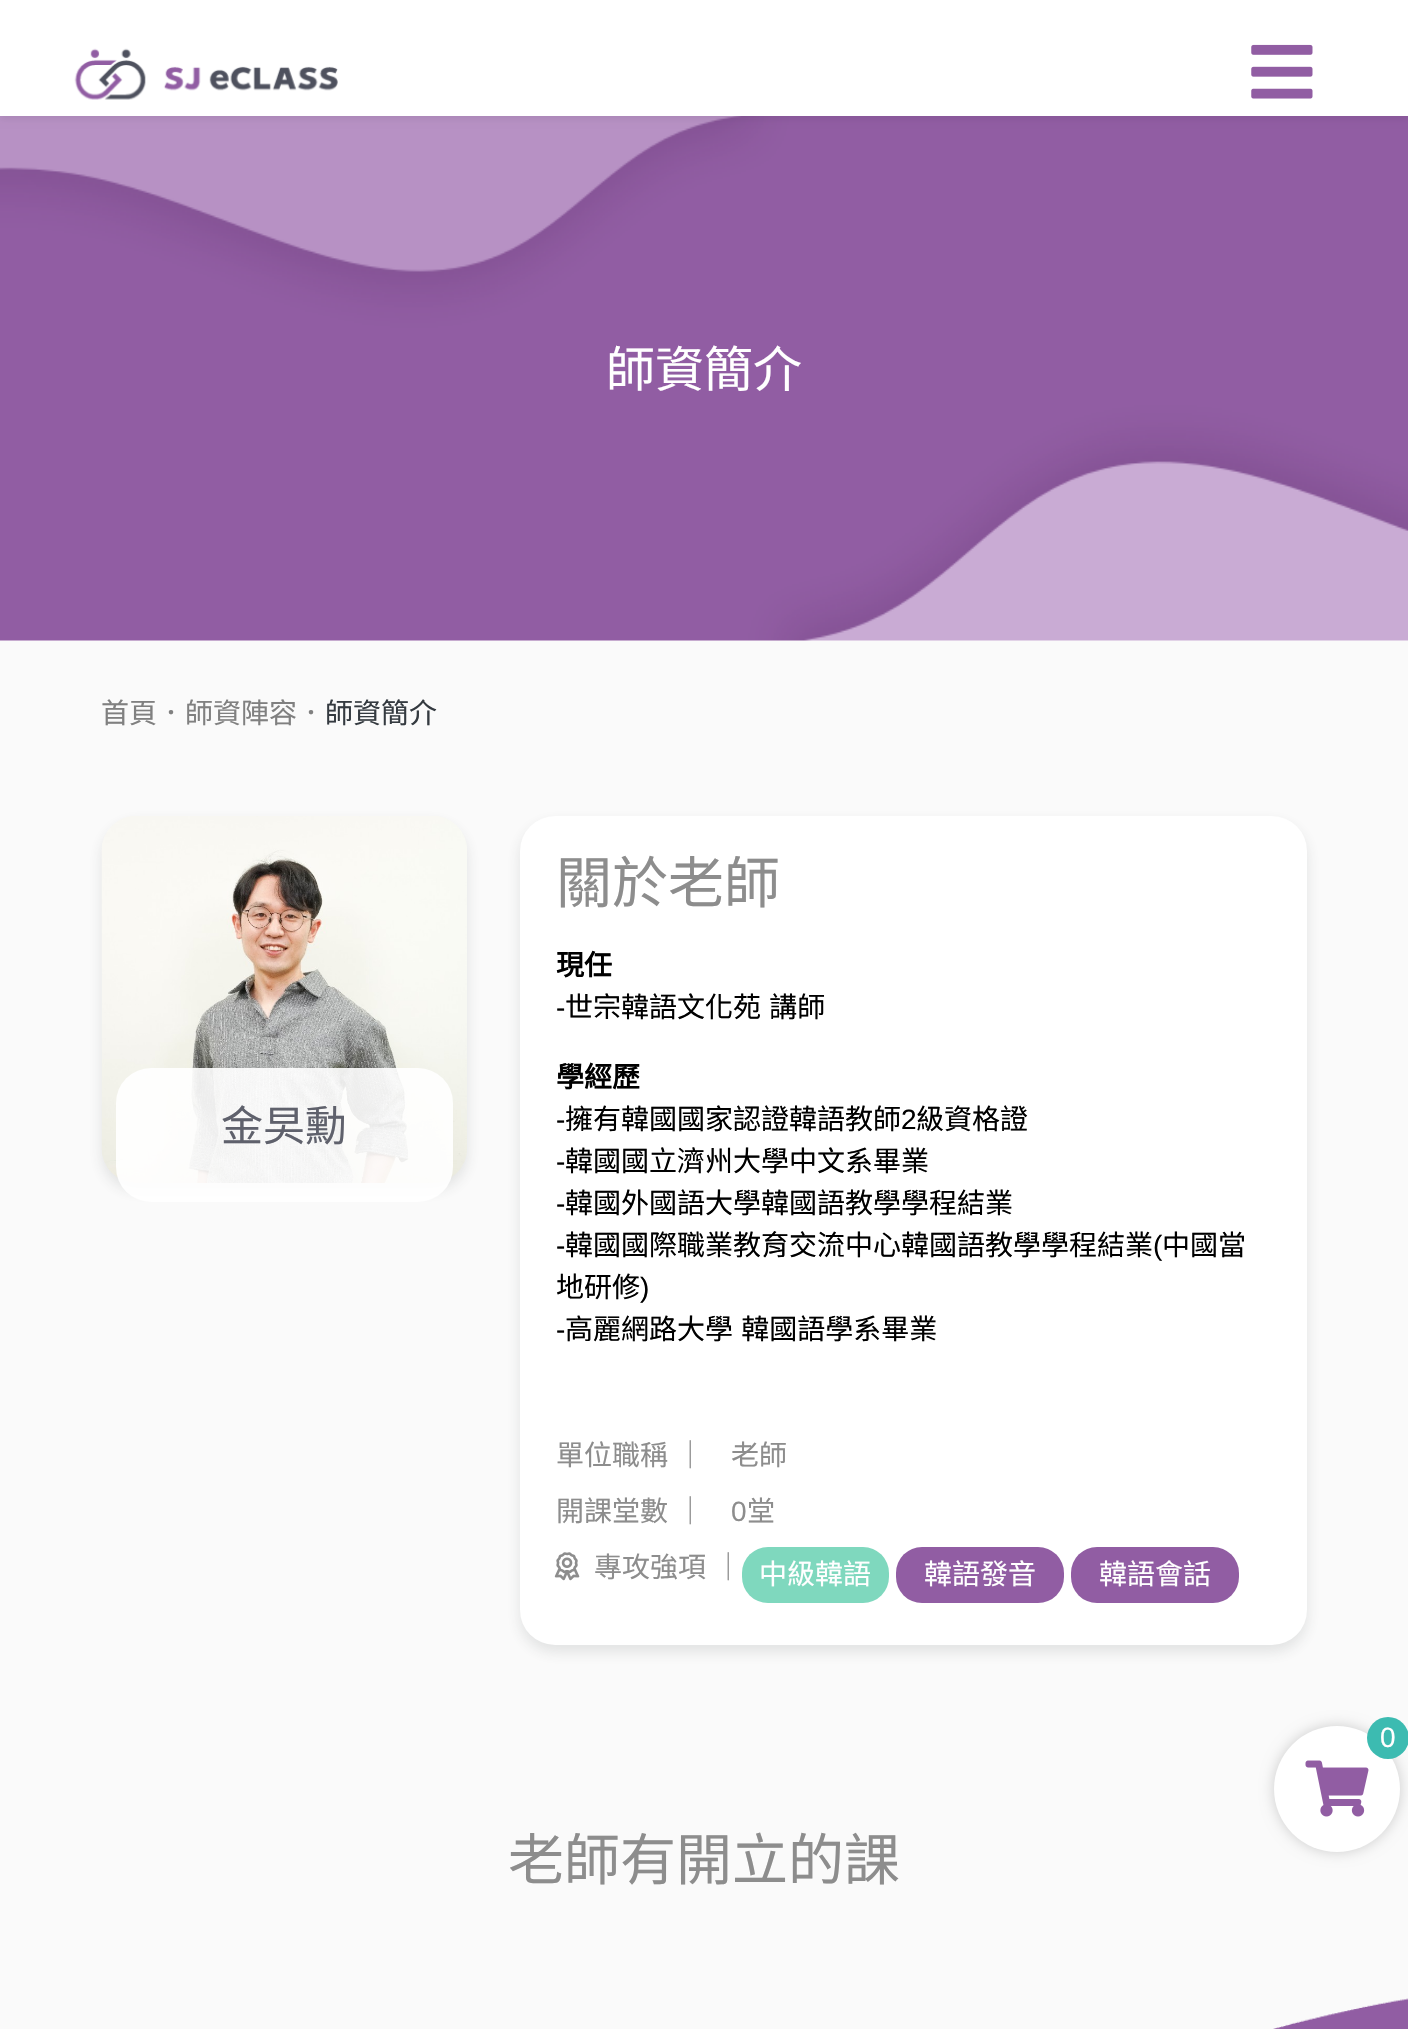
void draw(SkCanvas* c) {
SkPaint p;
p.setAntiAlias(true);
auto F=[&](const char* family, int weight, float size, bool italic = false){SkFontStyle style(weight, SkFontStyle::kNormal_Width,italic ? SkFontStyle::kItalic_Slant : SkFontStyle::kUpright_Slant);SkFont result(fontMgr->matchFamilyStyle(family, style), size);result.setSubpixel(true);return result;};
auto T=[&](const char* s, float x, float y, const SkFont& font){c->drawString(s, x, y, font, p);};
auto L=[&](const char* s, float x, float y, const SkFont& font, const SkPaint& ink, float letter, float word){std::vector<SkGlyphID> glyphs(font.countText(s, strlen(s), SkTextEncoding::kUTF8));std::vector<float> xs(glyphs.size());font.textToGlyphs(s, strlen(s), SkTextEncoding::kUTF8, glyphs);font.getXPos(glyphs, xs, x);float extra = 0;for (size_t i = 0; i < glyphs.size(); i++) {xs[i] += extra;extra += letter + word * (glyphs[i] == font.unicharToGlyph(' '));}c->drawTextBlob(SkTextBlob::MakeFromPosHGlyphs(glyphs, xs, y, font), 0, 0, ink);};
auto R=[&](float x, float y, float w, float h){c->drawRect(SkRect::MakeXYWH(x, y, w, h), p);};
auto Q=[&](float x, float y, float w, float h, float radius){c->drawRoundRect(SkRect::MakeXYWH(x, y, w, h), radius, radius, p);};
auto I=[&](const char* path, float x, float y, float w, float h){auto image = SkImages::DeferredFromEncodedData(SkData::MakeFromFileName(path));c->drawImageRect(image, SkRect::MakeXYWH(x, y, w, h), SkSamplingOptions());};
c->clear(0xfffafafa);
I("3.png",0,116,1408,525);
p.setColor(0x12000000);
p.setMaskFilter(SkMaskFilter::MakeBlur(kNormal_SkBlurStyle, 3.5));
c->drawRect(SkRect::MakeXYWH(0,4,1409,115),p);
p.setMaskFilter(nullptr);
p.setColor(0xffffffff);
R(0,0,1408,116);
I("1.png",74,48,264,52);
I("2.png",1251,44,62,55);
auto f1 = F("Noto Sans CJK TC",400,49);
T("師資簡介",606,387,f1);
auto f2 = F("Noto Sans CJK TC",400,28);
p.setColor(0xff808080);
T("首頁．師資陣容．",101,723,f2);
p.setColor(0xff343a40);
T("師資簡介",325,723,f2);
p.setColor(0x1f353637);
p.setMaskFilter(SkMaskFilter::MakeBlur(kNormal_SkBlurStyle, 7));
c->drawRoundRect(SkRect::MakeXYWH(102,823,365,367),35,35,p);
p.setMaskFilter(nullptr);
I("4.png",101,816,366,367);
p.setColor(0xe6ffffff);
Q(116,1068,337,134,35);
auto f3 = F("Noto Sans CJK TC",400,42);
p.setColor(0xff5f616c);
T("金旲勳",221,1141,f3);
p.setColor(0x1f353637);
p.setMaskFilter(SkMaskFilter::MakeBlur(kNormal_SkBlurStyle, 7));
c->drawRoundRect(SkRect::MakeXYWH(520,823,787,829),35,35,p);
p.setMaskFilter(nullptr);
p.setColor(0xffffffff);
Q(520,816,787,829,35);
auto f4 = F("Noto Sans CJK TC",400,56);
p.setColor(0xff8d8d8d);
T("關於老師",556,903,f4);
auto f5 = F("Noto Sans CJK TC",700,28);
p.setColor(0xff000000);
T("現任",556,975,f5);
auto f6 = F("Liberation Sans",400,28);
T("-",556,1017,f6);
L("世宗韓語文化苑 講師",565,1017,f2,p,0,2);
T("學經歷",556,1087,f5);
T("-",556,1129,f6);
T("擁有韓國國家認證韓語教師",565,1129,f2);
T("2",901,1129,f6);
T("級資格證",916,1129,f2);
T("-",556,1171,f6);
T("韓國國立濟州大學中文系畢業",565,1171,f2);
T("-",556,1213,f6);
T("韓國外國語大學韓國語教學學程結業",565,1213,f2);
T("-",556,1255,f6);
T("韓國國際職業教育交流中心韓國語教學學程結業",565,1255,f2);
T("(",1153,1255,f6);
T("中國當",1162,1255,f2);
T("地研修",556,1297,f2);
T(")",640,1297,f6);
T("-",556,1339,f6);
L("高麗網路大學 韓國語學系畢業",565,1339,f2,p,0,2);
p.setColor(0xff8d8d8d);
L("單位職稱 ｜",556,1465,f2,p,0,2);
T("老師",731,1465,f2);
L("開課堂數 ｜",556,1521,f2,p,0,2);
T("0",731,1521,f6);
T("堂",747,1521,f2);
I("5.png",554,1552,26,29);
L("專攻強項 ｜",594,1577,f2,p,0,2);
p.setColor(0xff7fd8be);
Q(742,1547,147,56,26);
p.setColor(0xffffffff);
T("中級韓語",759,1584,f2);
p.setColor(0xff915da3);
Q(896,1547,168,56,26);
p.setColor(0xffffffff);
T("韓語發音",924,1584,f2);
p.setColor(0xff915da3);
Q(1071,1547,168,56,26);
p.setColor(0xffffffff);
T("韓語會話",1099,1584,f2);
p.setColor(0xff8d8d8d);
T("老師有開立的課",508,1880,f4);
p.setColor(0x2e000000);
p.setMaskFilter(SkMaskFilter::MakeBlur(kNormal_SkBlurStyle, 7));
c->drawRoundRect(SkRect::MakeXYWH(1274,1726,126,126),63,63,p);
p.setMaskFilter(nullptr);
p.setColor(0xffffffff);
c->drawCircle(1337,1789,63,p);
p.setColor(0xff3cbbb1);
c->drawCircle(1388,1738,21,p);
p.setColor(0xffffffff);
T("0",1380,1747,f6);
I("6.png",1305,1760,64,57);
I("7.png",1273,1998,135,31);
}
